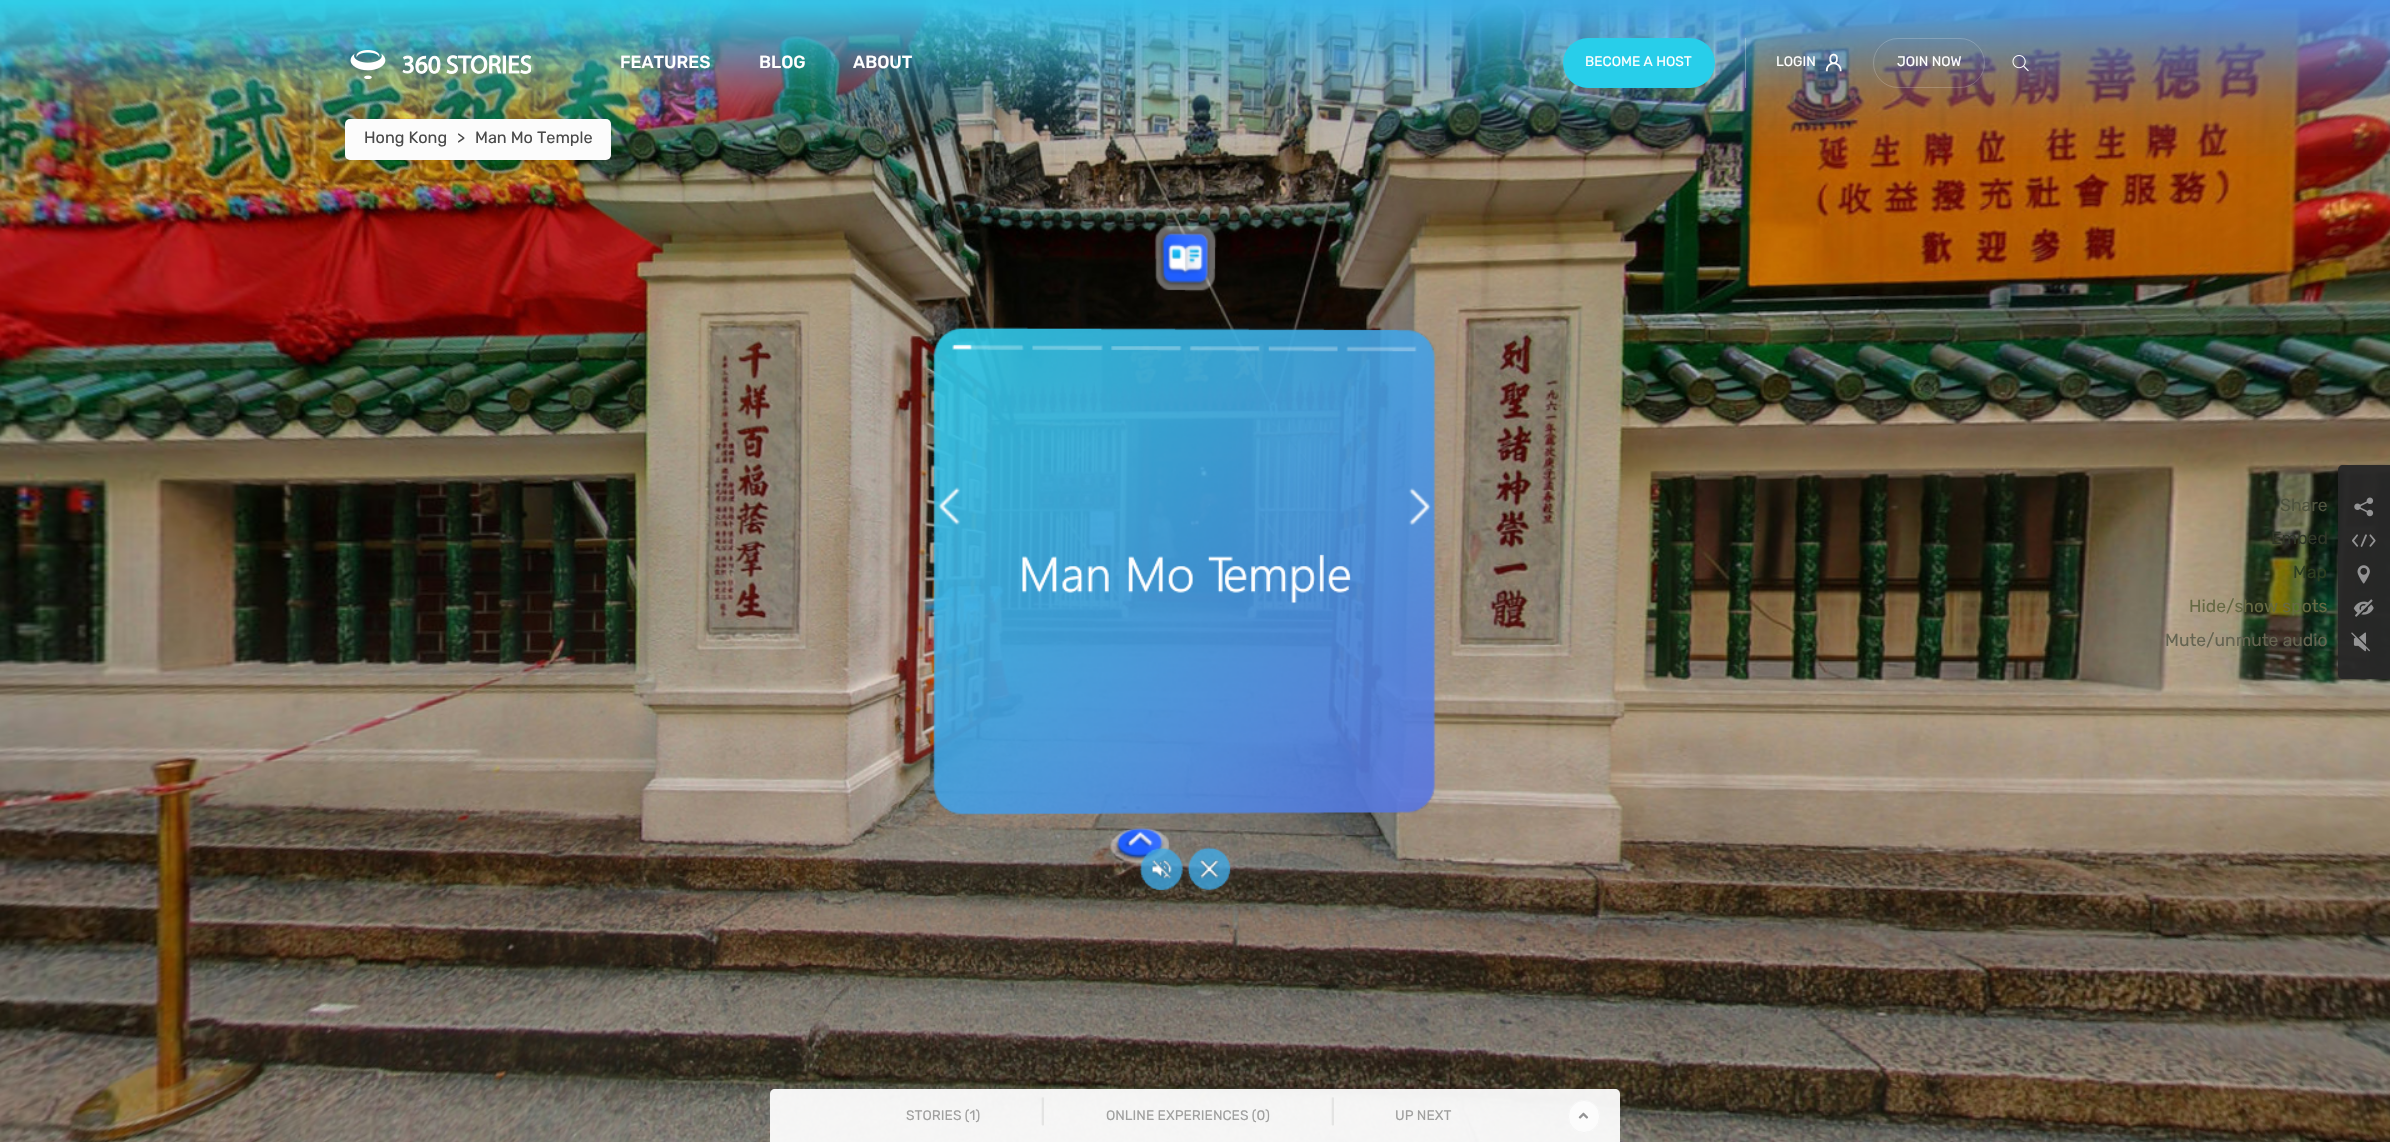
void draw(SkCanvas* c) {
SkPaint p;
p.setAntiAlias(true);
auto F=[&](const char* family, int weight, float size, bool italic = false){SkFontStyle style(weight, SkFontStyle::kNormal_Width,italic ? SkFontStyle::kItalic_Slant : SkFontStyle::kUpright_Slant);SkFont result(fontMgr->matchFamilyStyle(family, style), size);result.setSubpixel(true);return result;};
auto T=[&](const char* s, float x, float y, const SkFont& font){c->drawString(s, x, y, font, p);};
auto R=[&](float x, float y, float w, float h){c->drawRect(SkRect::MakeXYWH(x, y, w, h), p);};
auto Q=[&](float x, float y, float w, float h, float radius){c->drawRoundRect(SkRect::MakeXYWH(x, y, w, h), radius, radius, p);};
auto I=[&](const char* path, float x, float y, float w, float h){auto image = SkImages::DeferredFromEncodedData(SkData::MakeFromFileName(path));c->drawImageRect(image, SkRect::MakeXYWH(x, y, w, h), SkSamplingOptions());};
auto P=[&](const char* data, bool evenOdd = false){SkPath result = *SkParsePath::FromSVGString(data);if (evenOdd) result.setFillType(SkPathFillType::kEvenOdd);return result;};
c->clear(0xffffffff);
I("4.png",0,0,2390,1142);
I("5.png",0,0,2390,156);
I("1.png",350,50,181,29);
auto f1 = F("Rubik",500,17.5);
p.setColor(0xffffffff);
T("FEATURES",620,68,f1);
T("BLOG",759,68,f1);
T("ABOUT",853,68,f1);
p.setColor(0xff28ceea);
Q(1563,38,152,50,25);
auto f2 = F("Rubik",400,13.75);
p.setColor(0xffffffff);
T("BECOME A HOST",1585,66,f2);
p.setColor(0x4dffffff);
R(1745,38,1,50);
p.setColor(0xffffffff);
T("LOGIN",1776,66,f2);
I("2.png",1825,53,17,19);
p.setStroke(true);
p.setStrokeWidth(1);
p.setColor(0x33ffffff);
c->drawRoundRect(SkRect::MakeXYWH(1873.5,38.5,111,49),24.5,24.5,p);
p.setStroke(false);
p.setColor(0xffffffff);
T("JOIN NOW",1897,66,f2);
I("3.png",2012,55,17,17);
p.setColor(0x12000000);
p.setMaskFilter(SkMaskFilter::MakeBlur(kNormal_SkBlurStyle, 2.5));
c->drawRoundRect(SkRect::MakeXYWH(345,121,266,42),5,5,p);
p.setMaskFilter(nullptr);
p.setColor(0xfffcfcfc);
Q(345,119,266,41,5);
auto f3 = F("Rubik",400,16.25);
p.setColor(0xff4a4a4a);
T("Hong Kong",364,143,f3);
T(">",457,143,f3);
T("Man Mo Temple",475,143,f3);
p.setColor(0xf2272727);
c->drawPath(P("M2343 465h47v214h-47c-3 0-5-2-5-5v-204c0-3 2-5 5-5z"),p);
auto f4 = F("Rubik",400,17.5);
p.setColor(0xff4f533e);
T("Share",2280,511,f4);
I("6.png",2354,497,20,20);
p.setColor(0xff303728);
T("Embed",2271,544,f4);
I("7.png",2352,534,24,13);
p.setColor(0xff2d3e21);
T("Map",2293,578,f4);
I("8.png",2357,565,13,19);
p.setColor(0xff666943);
T("Hide/show spots",2189,612,f4);
I("9.png",2353,599,21,18);
p.setColor(0xff656451);
T("Mute/unmute audio",2165,646,f4);
I("10.png",2351,632,19,20);
p.setColor(0xf2fcfcfc);
c->drawPath(P("M775 1089h840c3 0 5 2 5 5v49h-850v-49c0-3 2-5 5-5z"),p);
p.setColor(0xffa0a09f);
T("STORIES (1)",906,1120,f2);
auto f5 = F("Rubik",400,25);
p.setColor(0xffe4e4e3);
T("|",1040,1120,f5);
p.setColor(0xffa0a09f);
T("ONLINE EXPERIENCES (0)",1106,1120,f2);
p.setColor(0xffe4e4e3);
T("|",1330,1120,f5);
p.setColor(0xffa0a09f);
T("UP NEXT",1395,1120,f2);
p.setColor(0xfffcfcfc);
Q(1568,1100,32,33,16);
p.setStroke(true);
p.setColor(0x33d7d7d7);
c->drawRoundRect(SkRect::MakeXYWH(1568.5,1100.5,31,32),15.5,15.5,p);
I("11.png",1578,1112,11,7);
}
